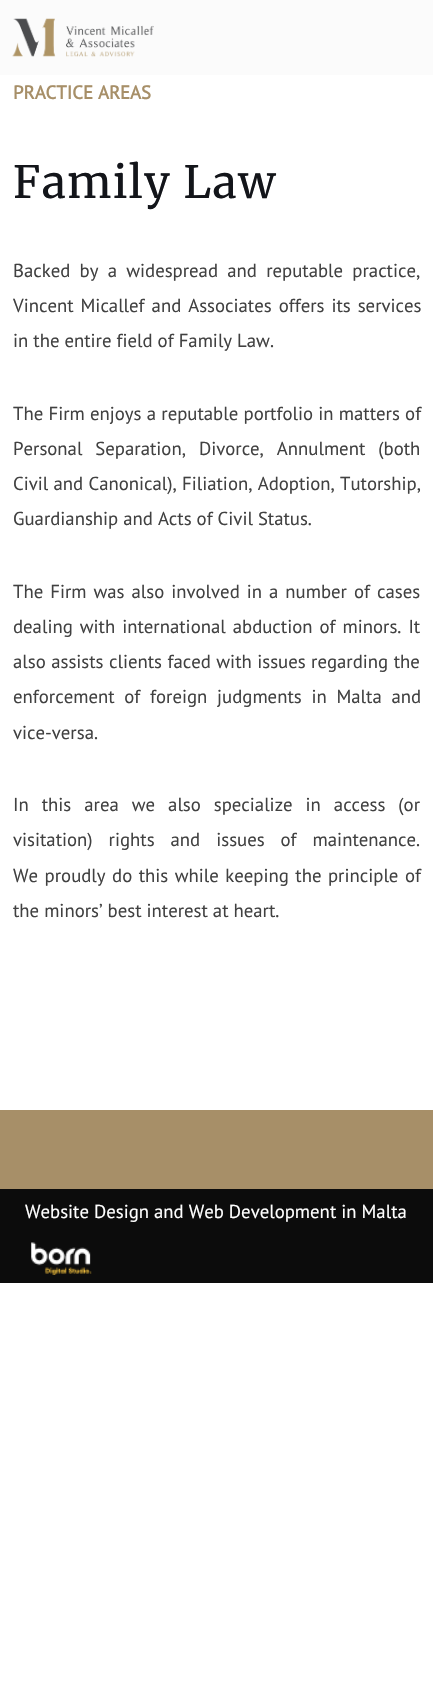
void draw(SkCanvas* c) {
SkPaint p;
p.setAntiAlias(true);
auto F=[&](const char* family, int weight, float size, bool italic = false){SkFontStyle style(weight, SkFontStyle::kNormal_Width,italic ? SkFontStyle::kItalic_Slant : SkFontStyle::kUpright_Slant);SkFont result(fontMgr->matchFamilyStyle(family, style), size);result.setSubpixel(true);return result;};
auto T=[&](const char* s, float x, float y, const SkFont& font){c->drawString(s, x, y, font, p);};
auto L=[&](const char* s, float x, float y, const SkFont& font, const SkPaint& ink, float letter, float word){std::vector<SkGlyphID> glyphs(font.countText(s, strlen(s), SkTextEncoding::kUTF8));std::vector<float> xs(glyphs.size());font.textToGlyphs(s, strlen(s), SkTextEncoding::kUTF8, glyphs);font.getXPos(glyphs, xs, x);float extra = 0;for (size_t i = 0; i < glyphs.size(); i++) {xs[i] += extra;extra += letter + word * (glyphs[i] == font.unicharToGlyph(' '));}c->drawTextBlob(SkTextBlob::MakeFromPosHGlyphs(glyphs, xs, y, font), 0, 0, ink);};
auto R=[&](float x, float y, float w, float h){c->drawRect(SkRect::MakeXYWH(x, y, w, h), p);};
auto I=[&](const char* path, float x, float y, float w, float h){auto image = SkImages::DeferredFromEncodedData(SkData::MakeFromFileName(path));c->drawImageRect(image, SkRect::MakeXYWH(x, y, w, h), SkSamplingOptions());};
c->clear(0xffffffff);
p.setColor(0xfffbfbfb);
R(0,0,433,75);
I("1.png",12,18,142,39);
auto f1 = F("PT Sans",700,18.75);
p.setColor(0xffa78f68);
T("PRACTICE AREAS",13,99,f1);
auto f2 = F("Merriweather",400,44.5);
p.setColor(0xff13151a);
L("Family Law",13,198,f2,p,1.5,0);
auto f3 = F("PT Sans",400,18.75);
p.setColor(0xff414141);
L("Backed by a widespread and reputable practice,",13,277,f3,p,0,4.25);
L("Vincent Micallef and Associates offers its services",13,312,f3,p,0,2);
T("in the entire field of Family Law.",13,347,f3);
L("The Firm enjoys a reputable portfolio in matters of",13,420,f3,p,0,.25);
L("Personal Separation, Divorce, Annulment (both",13,455,f3,p,0,8);
L("Civil and Canonical), Filiation, Adoption, Tutorship,",13,490,f3,p,0,.25);
T("Guardianship and Acts of Civil Status.",13,525,f3);
L("The Firm was also involved in a number of cases",13,598,f3,p,0,2);
L("dealing with international abduction of minors. It",13,633,f3,p,0,2);
L("also assists clients faced with issues regarding the",13,668,f3,p,0,.5);
L("enforcement of foreign judgments in Malta and",13,703,f3,p,0,4.75);
T("vice-versa.",13,739,f3);
L("In this area we also specialize in access (or",13,811,f3,p,0,8);
L("visitation) rights and issues of maintenance.",13,846,f3,p,0,11);
L("We proudly do this while keeping the principle of",13,882,f3,p,0,1.5);
T("the minors’ best interest at heart.",13,917,f3);
p.setColor(0xffa78f68);
R(0,1110,433,79);
p.setColor(0xff0c0c0c);
R(0,1189,433,94);
p.setColor(0xffffffff);
T("Website Design and Web Development in Malta",25,1218,f3);
I("2.png",31,1242,61,33);
}
